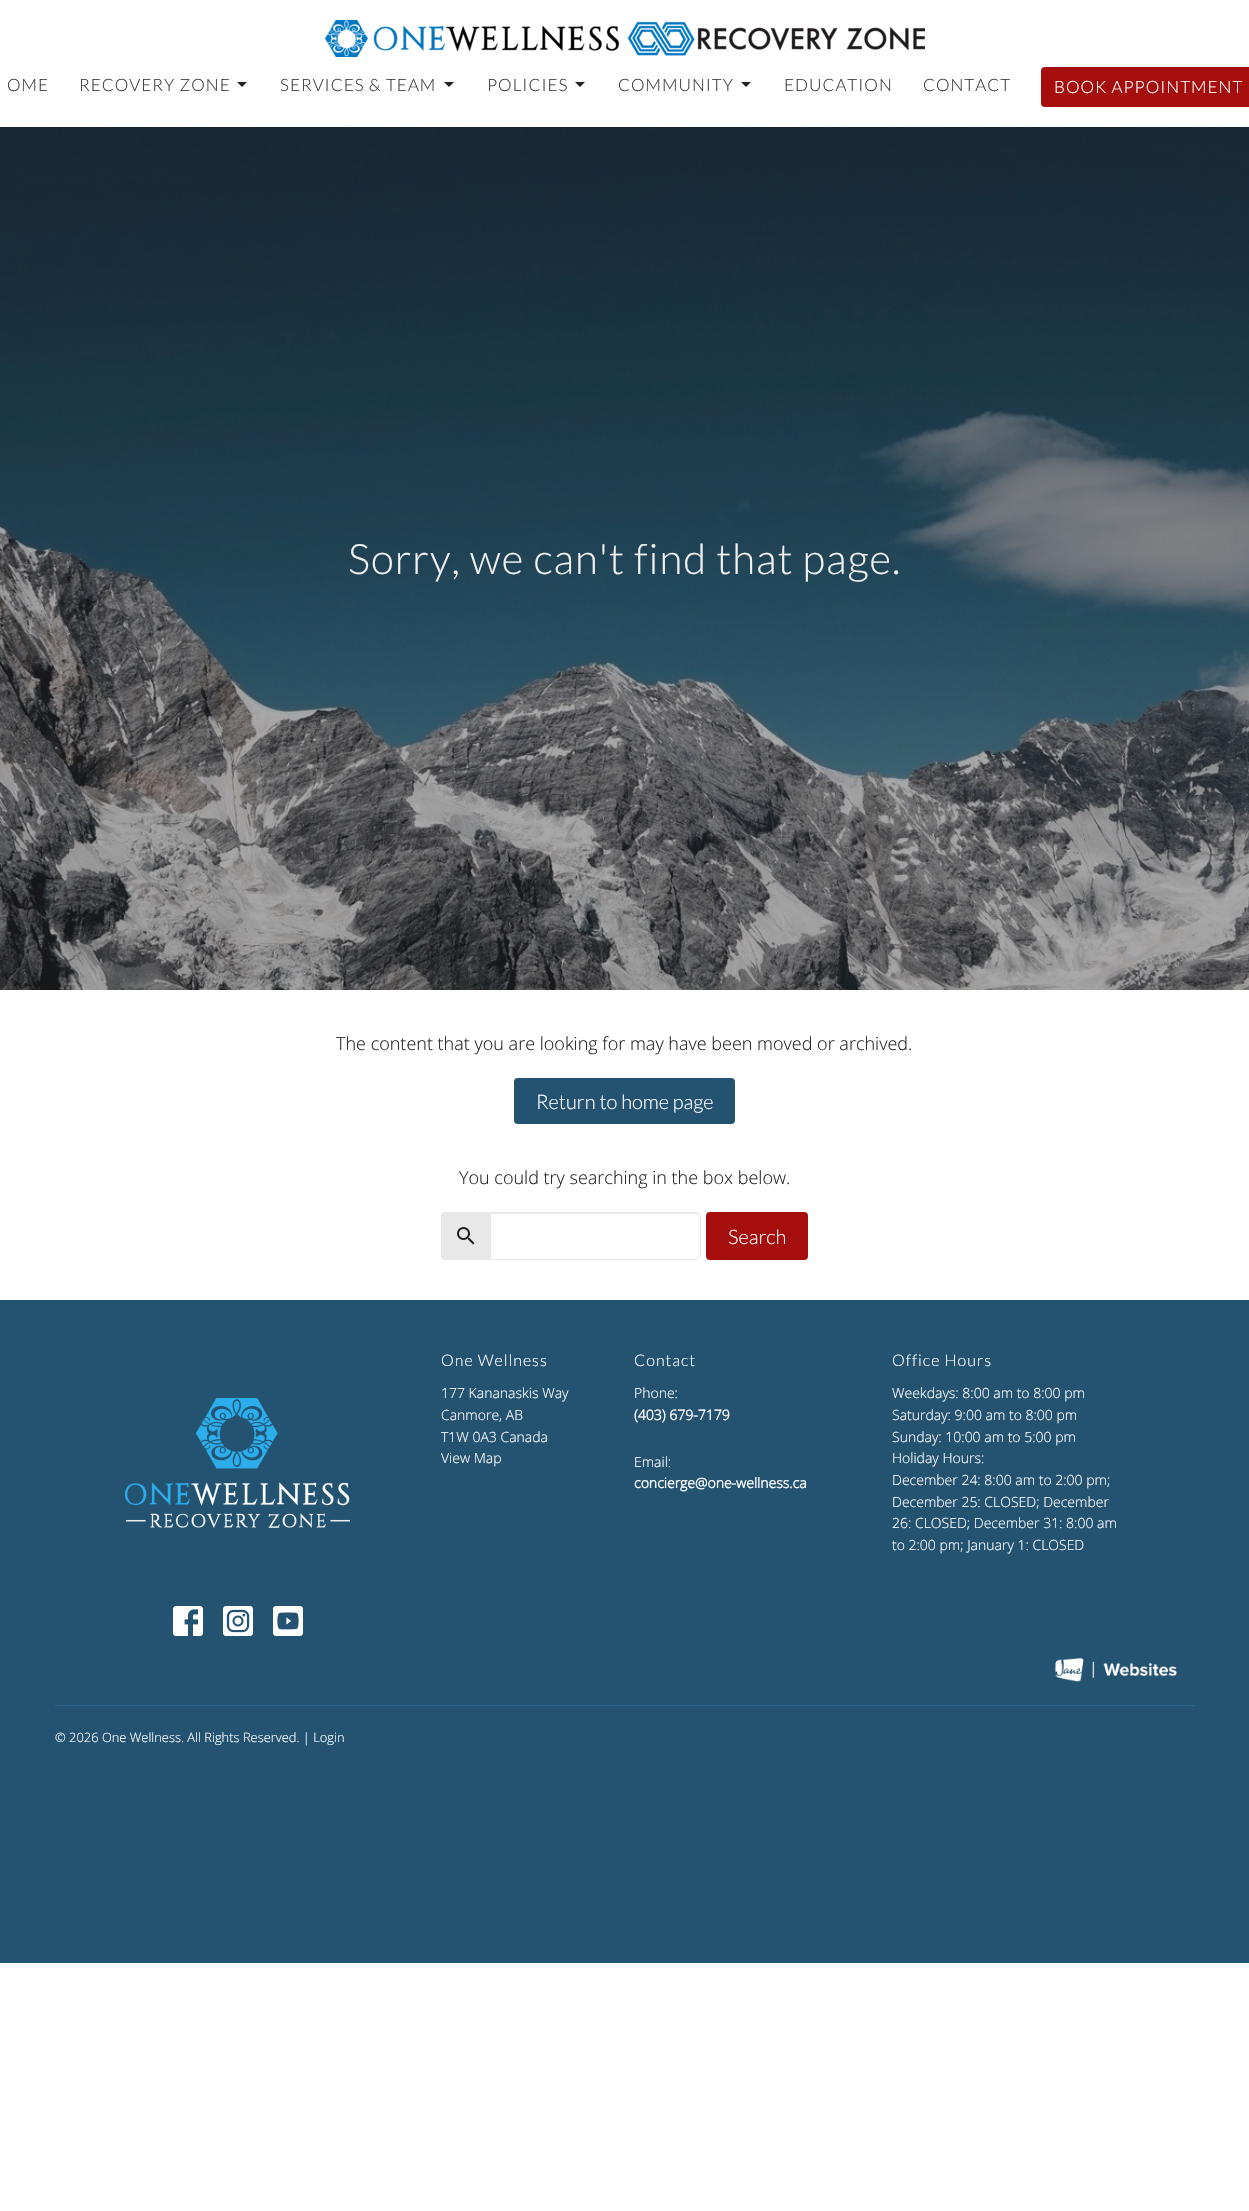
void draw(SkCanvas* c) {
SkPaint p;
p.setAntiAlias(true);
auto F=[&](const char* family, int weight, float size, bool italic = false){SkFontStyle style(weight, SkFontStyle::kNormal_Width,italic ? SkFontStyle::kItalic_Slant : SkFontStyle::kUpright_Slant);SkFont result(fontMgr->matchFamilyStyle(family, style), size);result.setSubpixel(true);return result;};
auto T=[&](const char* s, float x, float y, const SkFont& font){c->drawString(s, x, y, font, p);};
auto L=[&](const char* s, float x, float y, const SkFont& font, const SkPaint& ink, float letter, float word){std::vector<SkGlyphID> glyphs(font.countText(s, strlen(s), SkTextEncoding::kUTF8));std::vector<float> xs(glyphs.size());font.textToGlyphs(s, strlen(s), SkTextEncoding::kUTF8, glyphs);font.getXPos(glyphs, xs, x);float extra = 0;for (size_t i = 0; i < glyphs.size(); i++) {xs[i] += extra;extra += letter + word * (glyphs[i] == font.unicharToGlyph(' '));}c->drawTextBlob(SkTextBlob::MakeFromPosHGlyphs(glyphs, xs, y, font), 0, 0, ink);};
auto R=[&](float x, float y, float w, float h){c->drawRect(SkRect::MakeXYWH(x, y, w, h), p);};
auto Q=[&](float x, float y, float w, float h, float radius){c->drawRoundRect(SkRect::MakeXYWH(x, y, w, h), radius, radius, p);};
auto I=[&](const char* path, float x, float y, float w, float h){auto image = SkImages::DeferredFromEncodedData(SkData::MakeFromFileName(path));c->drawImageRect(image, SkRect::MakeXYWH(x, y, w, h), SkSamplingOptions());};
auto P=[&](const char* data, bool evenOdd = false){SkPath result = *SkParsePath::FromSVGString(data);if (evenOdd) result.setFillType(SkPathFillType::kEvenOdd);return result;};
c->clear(0xffffffff);
I("1.png",325,20,600,37);
auto f1 = F("Lato",300,17);
p.setColor(0xff383838);
L("OME",7,91,f1,p,1,0);
L("RECOVERY ZONE",79,91,f1,p,1,0);
p.setColor(0xff222222);
c->drawPath(P("M237 82l5 5l5-5z"),p);
p.setColor(0xff383838);
L("SERVICES & TEAM",280,91,f1,p,1,0);
p.setColor(0xff222222);
c->drawPath(P("M444 82l5 5l5-5z"),p);
p.setColor(0xff383838);
L("POLICIES",487,91,f1,p,1,0);
p.setColor(0xff222222);
c->drawPath(P("M575 82l5 5l5-5z"),p);
p.setColor(0xff383838);
L("COMMUNITY",618,91,f1,p,1,0);
p.setColor(0xff222222);
c->drawPath(P("M741 82l5 5l5-5z"),p);
p.setColor(0xff383838);
L("EDUCATION",784,91,f1,p,1,0);
L("CONTACT",923,91,f1,p,1,0);
p.setColor(0xffa60e0e);
Q(1041,67,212,40,4);
p.setColor(0xffffffff);
L("BOOK APPOINTMENT",1054,93,f1,p,1,0);
I("2.png",0,127,1249,863);
auto f2 = F("Lato",300,42);
p.setColor(0xfff1f1f1);
L("Sorry, we can't find that page.",348,574,f2,p,1,0);
auto f3 = F("Open Sans",300,18);
p.setColor(0xff222222);
T("The content that you are looking for may have been moved or archived.",336,1050,f3);
p.setColor(0xff245372);
Q(514,1078,221,46,4);
auto f4 = F("Lato",300,20);
p.setColor(0xffffffff);
T("Return to home page",536,1109,f4);
p.setColor(0xff222222);
T("You could try searching in the box below.",459,1184,f3);
p.setColor(0xffe8e8e8);
c->drawPath(P("M445 1212h45v48h-45c-2 0-4-2-4-4v-40c0-2 2-4 4-4z"),p);
p.setColor(0xffe6e6e6);
c->drawPath(P("M445 1212h45v48h-45c-2 0-4-2-4-4v-40c0-2 2-4 4-4zm0 1h45v46h-45c-2 0-3-1-3-3v-40c0-2 1-3 3-3z",true),p);
I("3.png",457,1227,18,18);
p.setColor(0xffececec);
c->drawPath(P("M491 1214h204c3 0 5 2 5 5c0-3-1-5-4-6h-205z"),p);
p.setStroke(true);
p.setStrokeWidth(1);
p.setColor(0xffe6e6e6);
c->drawPath(P("M490.5 1212.5h204.5c3 0 5.5 2.5 5.5 5.5v36c0 3-2.5 5.5-5.5 5.5h-204.5z"),p);
p.setStroke(false);
p.setColor(0xffa60e0e);
Q(706,1212,102,48,4);
p.setColor(0xffffffff);
T("Search",728,1244,f4);
p.setColor(0xff245372);
R(0,1300,1249,663);
I("4.png",125,1398,225,130);
auto f5 = F("Lato",300,16);
p.setColor(0xffffffff);
L("One Wellness",441,1366,f5,p,1,0);
auto f6 = F("Open Sans",300,14);
T("177 Kananaskis Way",441,1398,f6);
T("Canmore, AB",441,1420,f6);
T("T1W 0A3 Canada",441,1442,f6);
T("View Map",441,1463,f6);
L("Contact",634,1366,f5,p,1,0);
T("Phone:",634,1398,f6);
auto f7 = F("Open Sans",700,14);
T("(403) 679-7179",634,1420,f7);
T("Email:",634,1467,f6);
T("concierge@one-wellness.ca",634,1488,f7);
L("Office Hours",892,1366,f5,p,1,0);
T("Weekdays: 8:00 am to 8:00 pm",892,1398,f6);
T("Saturday: 9:00 am to 8:00 pm",892,1420,f6);
T("Sunday: 10:00 am to 5:00 pm",892,1442,f6);
T("Holiday Hours:",892,1463,f6);
T("December 24: 8:00 am to 2:00 pm;",892,1485,f6);
T("December 25: CLOSED; December",892,1507,f6);
T("26: CLOSED; December 31: 8:00 am",892,1528,f6);
T("to 2:00 pm; January 1: CLOSED",892,1550,f6);
I("5.png",173,1606,30,30);
I("6.png",223,1606,30,30);
I("7.png",273,1606,30,30);
I("8.png",1055,1658,122,24);
p.setColor(0xff2b6489);
R(55,1705,1140,1);
auto f8 = F("Open Sans",300,12.9);
p.setColor(0xffffffff);
T("© 2026 One Wellness. All Rights Reserved. | Login",55,1742,f8);
}
